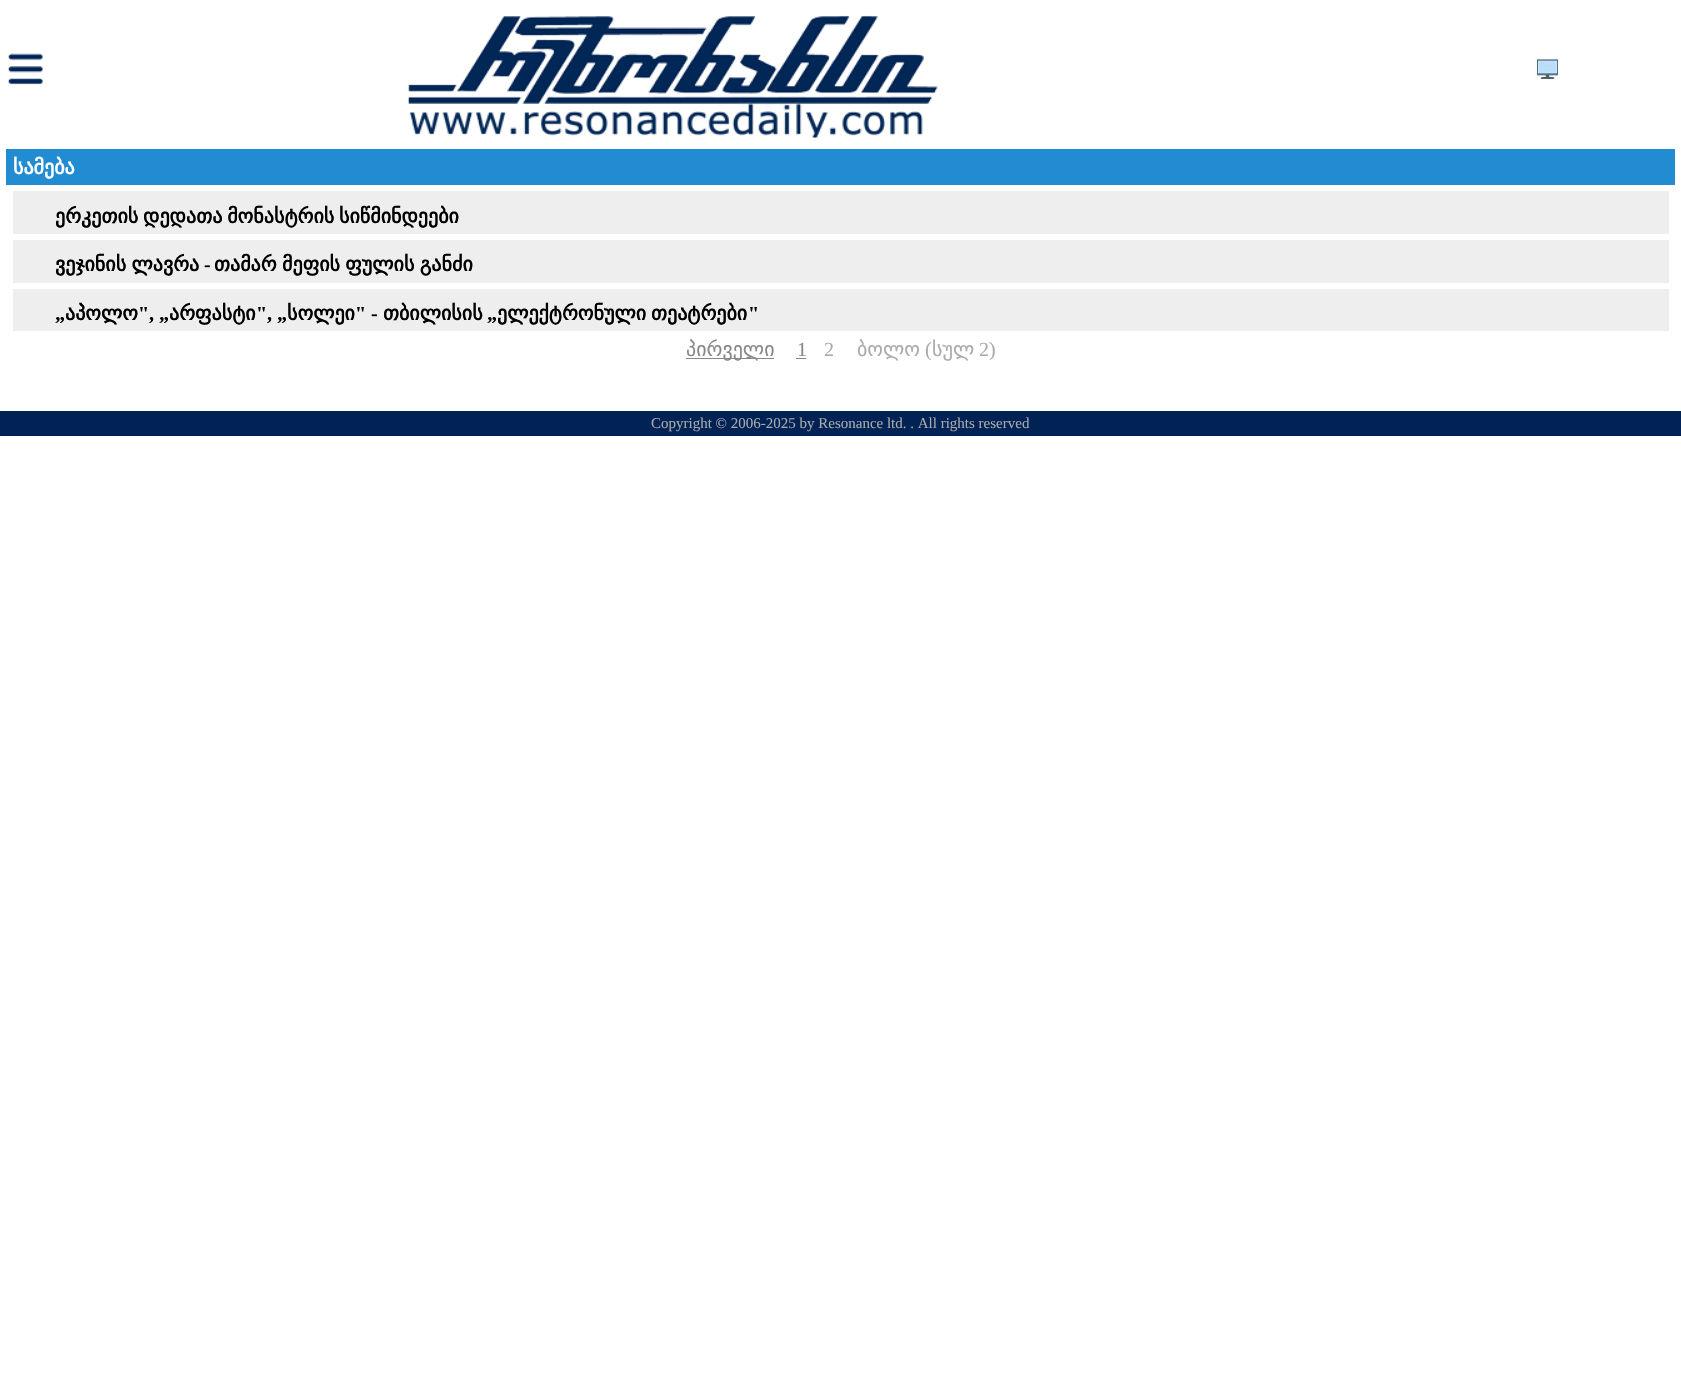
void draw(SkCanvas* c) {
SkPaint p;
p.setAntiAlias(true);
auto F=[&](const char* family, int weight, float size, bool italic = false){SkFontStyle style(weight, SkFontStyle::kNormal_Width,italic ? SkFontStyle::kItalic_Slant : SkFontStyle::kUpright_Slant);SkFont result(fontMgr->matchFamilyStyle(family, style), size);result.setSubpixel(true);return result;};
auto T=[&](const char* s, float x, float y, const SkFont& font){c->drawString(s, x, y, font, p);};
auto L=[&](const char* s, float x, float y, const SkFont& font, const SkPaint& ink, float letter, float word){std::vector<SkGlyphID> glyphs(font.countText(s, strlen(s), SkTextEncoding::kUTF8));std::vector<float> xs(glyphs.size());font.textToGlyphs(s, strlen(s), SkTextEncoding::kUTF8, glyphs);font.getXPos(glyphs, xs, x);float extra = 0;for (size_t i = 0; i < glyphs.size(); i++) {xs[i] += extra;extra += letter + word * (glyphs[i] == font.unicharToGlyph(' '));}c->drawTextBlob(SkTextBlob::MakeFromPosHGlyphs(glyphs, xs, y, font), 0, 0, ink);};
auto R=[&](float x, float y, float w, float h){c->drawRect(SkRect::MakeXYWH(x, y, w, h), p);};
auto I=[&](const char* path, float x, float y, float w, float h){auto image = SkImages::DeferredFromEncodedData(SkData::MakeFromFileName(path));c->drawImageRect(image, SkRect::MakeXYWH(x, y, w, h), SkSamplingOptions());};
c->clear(0xffffffff);
I("1.png",8,53,35,32);
I("2.png",408,15,530,123);
I("3.png",1535,57,25,23);
p.setColor(0xff218cd2);
R(6,149,1669,36);
auto f1 = F("DejaVu Sans",700,20);
p.setColor(0xffffffff);
T("სამება",13,174,f1);
p.setColor(0xffeeeeee);
R(13,191,1656,43);
p.setColor(0xff000000);
L("ერკეთის დედათა მონასტრის სიწმინდეები",55,223,f1,p,0,-1.5);
p.setColor(0xffeeeeee);
R(13,240,1656,43);
p.setColor(0xff000000);
L("ვეჯინის ლავრა",55,271,f1,p,0,-1);
auto f2 = F("Liberation Serif",700,20);
T("-",204,271,f2);
L("თამარ მეფის ფულის განძი",214,271,f1,p,0,-1);
p.setColor(0xffeeeeee);
R(13,289,1656,42);
p.setColor(0xff000000);
T("აპოლო",65,320,f1);
T("\", „",138,320,f2);
T("არფასტი",169,320,f1);
T("\", „",256,320,f2);
T("სოლეი",287,320,f1);
T("\" -",355,320,f2);
T("თბილისის",383,320,f1);
T("ელექტრონული",497,320,f1);
T("თეატრები",651,320,f1);
T("\"",748,320,f2);
T("„",55,320,f2);
T("„",487,320,f2);
p.setColor(0xff888888);
R(686,358,88,1);
auto f3 = F("DejaVu Sans",400,20);
T("პირველი",686,356,f3);
auto f4 = F("Liberation Serif",400,20);
T("1",797,356,f4);
R(796,358,10,1);
p.setColor(0xffaaaaaa);
T("2",824,356,f4);
T("ბოლო",857,356,f3);
T("(",925,356,f4);
T("სულ",932,356,f3);
T("2)",979,356,f4);
p.setColor(0xff002255);
R(0,411,1681,25);
auto f5 = F("Liberation Serif",400,15);
p.setColor(0xffaaaaaa);
T("Copyright © 2006-2025 by Resonance ltd. . All rights reserved",651,428,f5);
}
